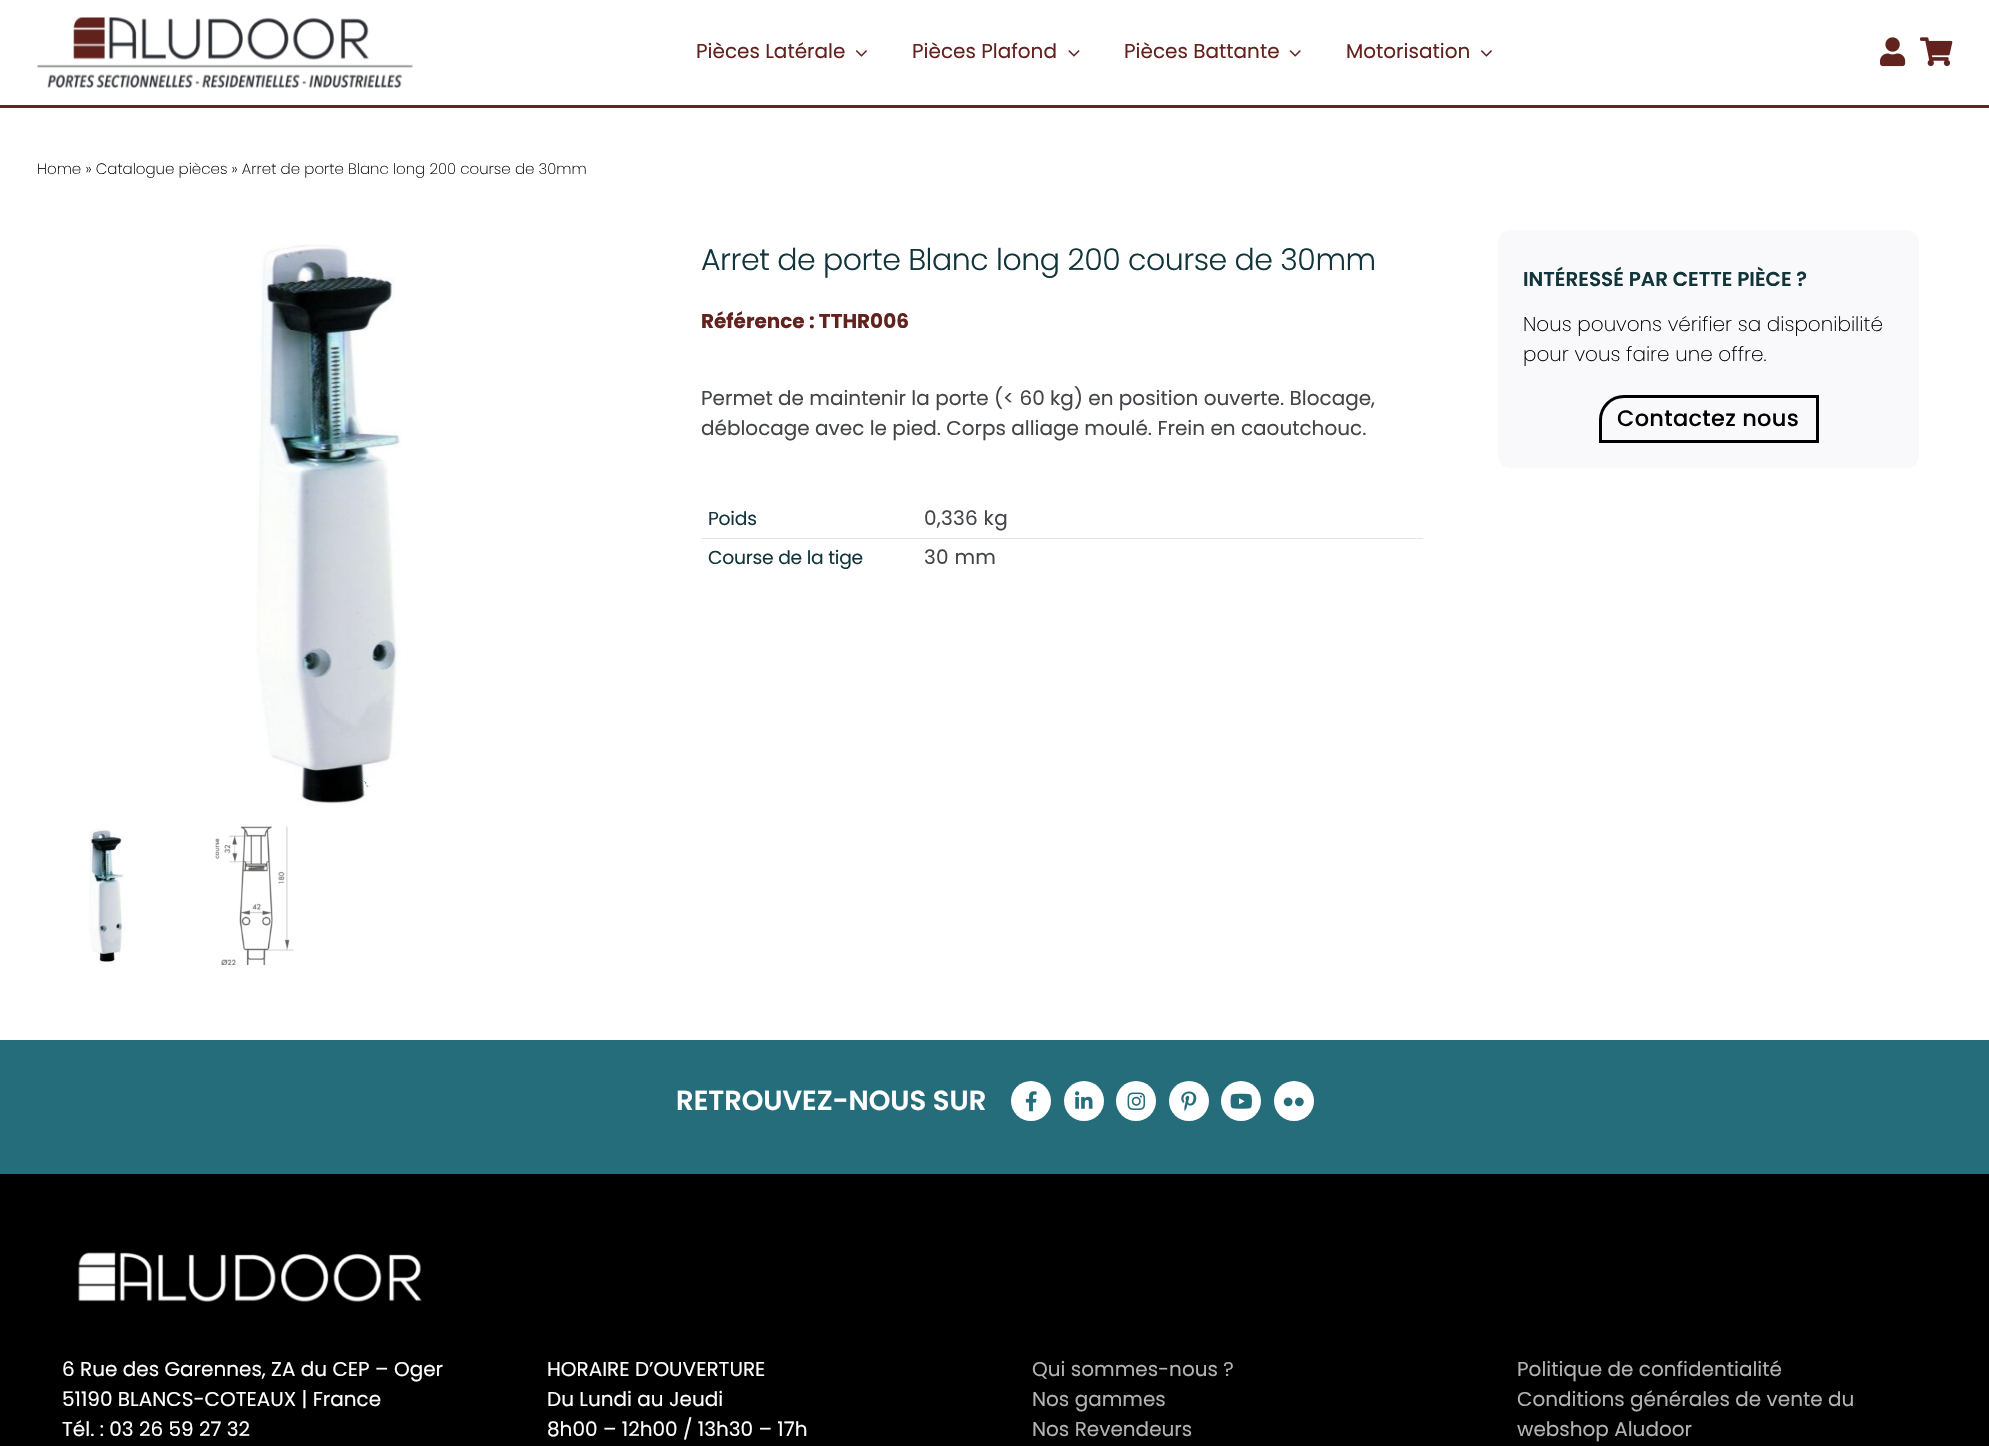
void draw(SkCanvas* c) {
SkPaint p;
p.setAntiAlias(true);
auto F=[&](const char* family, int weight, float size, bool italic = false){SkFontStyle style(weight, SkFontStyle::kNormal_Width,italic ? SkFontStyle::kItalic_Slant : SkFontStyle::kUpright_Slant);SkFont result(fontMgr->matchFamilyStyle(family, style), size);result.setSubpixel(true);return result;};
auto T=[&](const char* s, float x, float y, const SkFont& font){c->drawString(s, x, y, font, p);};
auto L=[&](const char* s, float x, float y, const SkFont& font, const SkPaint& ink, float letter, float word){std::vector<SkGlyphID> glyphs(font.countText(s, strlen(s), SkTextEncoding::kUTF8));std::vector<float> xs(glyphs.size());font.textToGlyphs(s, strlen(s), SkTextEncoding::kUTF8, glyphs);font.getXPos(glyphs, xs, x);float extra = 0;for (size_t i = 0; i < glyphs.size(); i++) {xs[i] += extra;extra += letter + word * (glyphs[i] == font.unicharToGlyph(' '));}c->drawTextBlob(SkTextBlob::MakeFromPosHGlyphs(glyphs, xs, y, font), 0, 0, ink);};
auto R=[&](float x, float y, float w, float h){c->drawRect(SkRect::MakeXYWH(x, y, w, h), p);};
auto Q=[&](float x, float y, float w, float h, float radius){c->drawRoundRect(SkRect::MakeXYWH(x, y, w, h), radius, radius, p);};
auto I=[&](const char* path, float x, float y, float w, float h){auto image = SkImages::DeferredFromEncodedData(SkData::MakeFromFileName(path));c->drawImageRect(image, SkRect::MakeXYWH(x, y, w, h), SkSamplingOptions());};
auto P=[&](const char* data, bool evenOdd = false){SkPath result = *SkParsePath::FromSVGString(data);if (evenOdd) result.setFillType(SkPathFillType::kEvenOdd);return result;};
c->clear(0xffffffff);
p.setColor(0xff62221e);
R(0,105,1989,3);
I("1.png",37,17,376,71);
auto f1 = F("Poppins",400,20);
T("Pièces Latérale",696,58,f1);
I("2.png",855,50,12,7);
T("Pièces Plafond",912,58,f1);
I("3.png",1068,50,12,7);
T("Pièces Battante",1124,58,f1);
I("4.png",1289,50,12,7);
T("Motorisation",1346,58,f1);
I("2.png",1480,50,12,7);
I("5.png",1880,37,26,30);
I("6.png",1920,37,33,30);
auto f2 = F("Poppins",200,15);
p.setColor(0xff000000);
T("Home » Catalogue pièces » Arret de porte Blanc long 200 course de 30mm",37,174,f2);
I("7.png",256,244,145,562);
I("8.png",363,781,7,6);
I("9.png",88,828,37,137);
I("10.png",215,826,79,139);
auto f3 = F("Poppins",300,30);
p.setColor(0xff12353c);
L("Arret de porte Blanc long 200 course de 30mm",701,270,f3,p,-.45,0);
auto f4 = F("Poppins",700,20);
p.setColor(0xff62221e);
T("Référence : TTHR006",701,328,f4);
p.setColor(0xff434549);
T("Permet de maintenir la porte (< 60 kg) en position ouverte. Blocage,",701,405,f1);
T("déblocage avec le pied. Corps alliage moulé. Frein en caoutchouc.",701,435,f1);
p.setColor(0xffe3e3e3);
R(701,538,722,1);
auto f5 = F("Poppins",400,18.75);
p.setColor(0xff12353c);
L("Poids",708,525,f5,p,-.25,0);
p.setColor(0xff434549);
L("0,336 kg",924,525,f1,p,.25,0);
p.setColor(0xff12353c);
L("Course de la tige",708,564,f5,p,-.25,0);
p.setColor(0xff434549);
L("30 mm",924,564,f1,p,.25,0);
p.setColor(0xfff9f9fb);
Q(1498,230,421,238,13);
auto f6 = F("Poppins",600,20);
p.setColor(0xff12353c);
T("INTÉRESSÉ PAR CETTE PIÈCE ?",1523,286,f6);
auto f7 = F("Poppins",200,20);
p.setColor(0xff000000);
T("Nous pouvons vérifier sa disponibilité",1523,331,f7);
T("pour vous faire une offre.",1523,361,f7);
p.setStroke(true);
p.setStrokeWidth(3);
c->drawPath(P("M1624 396.5h193.5v45h-217v-21.5c0-13 10.5-23.5 23.5-23.5z"),p);
auto f8 = F("Poppins",500,22.5);
p.setStroke(false);
L("Contactez nous",1617,426,f8,p,.3,0);
p.setColor(0xff266d7b);
R(0,1040,1989,134);
auto f9 = F("Poppins",600,27.5);
p.setColor(0xffffffff);
T("RETROUVEZ-NOUS SUR",676,1110,f9);
c->drawCircle(1031,1101,20,p);
I("11.png",1025,1091,12,21);
c->drawCircle(1084,1101,20,p);
I("12.png",1075,1091,18,18);
c->drawCircle(1136,1101,20,p);
I("13.png",1127,1092,19,18);
c->drawCircle(1189,1101,20,p);
I("14.png",1181,1091,16,20);
c->drawCircle(1241,1101,20,p);
I("15.png",1230,1093,22,16);
c->drawCircle(1294,1101,20,p);
I("16.png",1283,1097,21,10);
p.setColor(0xff000000);
R(0,1174,1989,272);
I("17.png",78,1252,344,50);
p.setColor(0xffffffff);
T("6 Rue des Garennes, ZA du CEP – Oger",62,1376,f1);
T("51190 BLANCS-COTEAUX | France",62,1406,f1);
T("Tél. : 03 26 59 27 32",62,1436,f1);
T("HORAIRE D’OUVERTURE",547,1376,f1);
T("Du Lundi au Jeudi",547,1406,f1);
T("8h00 – 12h00 / 13h30 – 17h",547,1436,f1);
p.setColor(0xffb3b3b3);
T("Qui sommes-nous ?",1032,1376,f1);
T("Nos gammes",1032,1406,f1);
T("Nos Revendeurs",1032,1436,f1);
T("Politique de confidentialité",1517,1376,f1);
T("Conditions générales de vente du",1517,1406,f1);
T("webshop Aludoor",1517,1436,f1);
}
